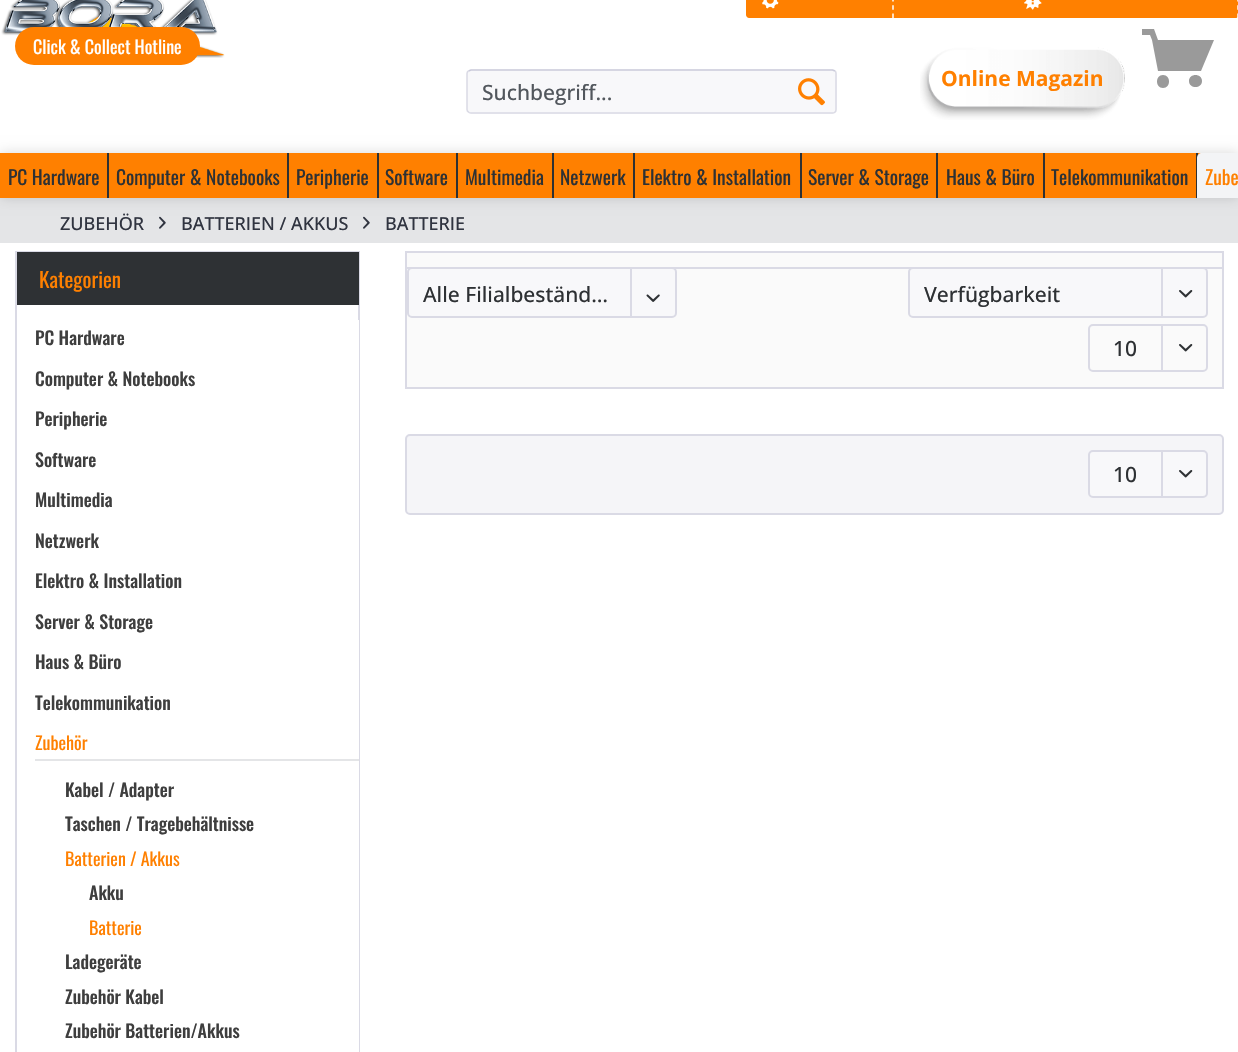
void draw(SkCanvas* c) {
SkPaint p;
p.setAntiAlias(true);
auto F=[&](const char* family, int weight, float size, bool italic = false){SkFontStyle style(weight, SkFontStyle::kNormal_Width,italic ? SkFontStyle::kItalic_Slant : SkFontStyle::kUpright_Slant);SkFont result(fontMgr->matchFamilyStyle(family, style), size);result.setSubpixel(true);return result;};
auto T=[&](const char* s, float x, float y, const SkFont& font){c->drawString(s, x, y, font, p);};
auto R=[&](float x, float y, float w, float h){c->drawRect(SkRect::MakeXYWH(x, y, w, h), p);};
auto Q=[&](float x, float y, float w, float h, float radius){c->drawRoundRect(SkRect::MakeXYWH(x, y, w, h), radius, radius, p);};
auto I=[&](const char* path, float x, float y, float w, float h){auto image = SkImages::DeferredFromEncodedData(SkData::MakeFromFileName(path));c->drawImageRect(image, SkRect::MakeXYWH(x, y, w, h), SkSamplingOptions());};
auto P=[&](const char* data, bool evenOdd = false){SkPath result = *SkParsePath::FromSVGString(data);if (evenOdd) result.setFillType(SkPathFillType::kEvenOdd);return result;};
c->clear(0xffffffff);
p.setColor(0xffff8000);
c->drawPath(P("M746-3h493v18c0 1.5-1.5 3-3 3h-487c-1.5 0-3-1.5-3-3z"),p);
p.setStroke(true);
p.setStrokeWidth(1.5);
p.setColor(0xffffffff);
p.setPathEffect(SkDashPathEffect::Make({{4.5f,3.75f}}, 0));
c->drawPath(P("M893-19.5v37.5"),p);
p.setPathEffect(nullptr);
I("1.png",762,0,17,9);
I("2.png",1024,0,18,10);
p.setPathEffect(SkDashPathEffect::Make({{4.5f,3.75f}}, 0));
c->drawPath(P("M1238-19.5v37.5"),p);
p.setPathEffect(nullptr);
I("3.png",1,0,224,58);
p.setStroke(false);
p.setColor(0xffff8000);
Q(15,27,185,38,19);
auto f1 = F("Oswald",400,18);
p.setColor(0xffffffff);
T("Click & Collect Hotline",33,54,f1);
p.setColor(0xff9a9a9a);
c->drawPath(P("M1158 71h43l13-31h-56l-4-11h-12v6h8l2 5zm5 4c-8 0-8 13 0 13c8 0 8-13 0-13zm39 6c0 8-13 8-13 0c0-8 13-8 13 0z"),p);
p.setColor(0xfff8f8fa);
Q(467,69,370,45,5);
p.setStroke(true);
p.setColor(0xffcbcbdb);
c->drawPath(P("M468.5 71l2.5-1h361.5l2.5 1"),p);
p.setColor(0xffdadae5);
c->drawPath(P("M835 71c1 .5 1 1.5 1 2.5v36c0 1 0 2-1 2.5c-.5 1-1.5 1-2.5 1h-361.5c-1 0-2 0-2.5-1c-1-.5-1.5-1.5-1.5-2.5v-36c0-1 .5-2 1.5-2.5"),p);
auto f2 = F("Open Sans",500,21);
p.setStroke(false);
p.setColor(0xff52575d);
T("Suchbegriff...",482,100,f2);
I("4.png",798,78,27,28);
I("5.png",920,47,205,73);
auto f3 = F("Open Sans",700,21);
p.setColor(0xffff8000);
T("Online Magazin",941,86,f3);
R(0,153,1202,45);
p.setColor(0xffe4e5e7);
R(0,198,1238,45);
c->save();
c->clipPath(P("M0 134h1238v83h-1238zm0 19h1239v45h-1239z",true),true);
p.setColor(0x26000000);
p.setMaskFilter(SkMaskFilter::MakeBlur(kNormal_SkBlurStyle, 6));
c->drawRect(SkRect::MakeXYWH(0,153,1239,45),p);
p.setMaskFilter(nullptr);
c->restore();
p.setColor(0xff2e3134);
R(107,153,2,45);
auto f4 = F("Oswald",400,19.5);
T("PC Hardware",8,185,f4);
R(287,153,2,45);
T("Computer & Notebooks",116,185,f4);
R(377,153,2,45);
T("Peripherie",296,185,f4);
R(456,153,2,45);
T("Software",385,185,f4);
R(552,153,2,45);
T("Multimedia",465,185,f4);
R(633,153,2,45);
T("Netzwerk",560,185,f4);
R(800,153,2,45);
T("Elektro & Installation",642,185,f4);
R(936,153,2,45);
T("Server & Storage",808,185,f4);
R(1043,153,2,45);
T("Haus & Büro",946,185,f4);
R(1196,153,2,45);
T("Telekommunikation",1051,185,f4);
p.setColor(0xfff3f4f6);
c->drawPath(P("M1202 153h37v45h-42v-40c0-3 2-5 5-5z"),p);
p.setColor(0xffff8000);
T("Zube",1205,185,f4);
auto f5 = F("Open Sans",500,18);
p.setColor(0xff303440);
T("ZUBEHÖR",60,230,f5);
I("6.png",159,216,7,13);
T("BATTERIEN / AKKUS",181,230,f5);
I("6.png",363,216,7,13);
T("BATTERIE",385,230,f5);
p.setStroke(true);
p.setStrokeWidth(2);
p.setColor(0xffdadae5);
c->drawRect(SkRect::MakeXYWH(16,252,343,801),p);
p.setStroke(false);
p.setColor(0xff2e3134);
R(17,252,342,53);
auto f6 = F("Oswald",400,21);
p.setColor(0xffff8000);
T("Kategorien",39,288,f6);
p.setColor(0xffffffff);
R(358,320,1,732);
auto f7 = F("Oswald",500,18);
p.setColor(0xff3e3e3e);
T("PC Hardware",35,345,f7);
T("Computer & Notebooks",35,386,f7);
T("Peripherie",35,426,f7);
T("Software",35,467,f7);
T("Multimedia",35,507,f7);
T("Netzwerk",35,548,f7);
T("Elektro & Installation",35,588,f7);
T("Server & Storage",35,629,f7);
T("Haus & Büro",35,669,f7);
c->save();
c->clipRect(SkRect::MakeXYWH(35,684,324,35));
T("Telekommunikation",35,710,f7);
c->restore();
p.setColor(0xffff8000);
T("Zubehör",35,750,f1);
p.setColor(0xffe4e5e7);
R(35,759,324,2);
p.setColor(0xff3e3e3e);
T("Kabel / Adapter",65,797,f7);
c->save();
c->clipRect(SkRect::MakeXYWH(65,806,294,34));
T("Taschen / Tragebehältnisse",65,831,f7);
c->restore();
p.setColor(0xffff8000);
T("Batterien / Akkus",65,866,f1);
p.setColor(0xff3e3e3e);
T("Akku",89,900,f7);
p.setColor(0xffff8000);
T("Batterie",89,935,f1);
p.setColor(0xff3e3e3e);
T("Ladegeräte",65,969,f7);
T("Zubehör Kabel",65,1004,f7);
T("Zubehör Batterien/Akkus",65,1038,f7);
p.setColor(0xfffafafa);
c->drawRect(SkRect::MakeXYWH(406,252,817,136),p);
p.setStroke(true);
p.setColor(0xffdadae5);
c->drawRect(SkRect::MakeXYWH(406,252,817,136),p);
p.setStroke(false);
R(407,267,816,2);
p.setColor(0xfff8f8fa);
c->drawRoundRect(SkRect::MakeXYWH(408,268,268,49),4,4,p);
p.setStroke(true);
p.setColor(0xffdadae5);
c->drawRoundRect(SkRect::MakeXYWH(408,268,268,49),4,4,p);
p.setStroke(false);
p.setColor(0xff2e3134);
T("Alle Filialbeständ…",423,302,f2);
p.setColor(0xffdadae5);
R(630,269,2,49);
I("7.png",646,294,14,8);
p.setColor(0xfff8f8fa);
c->drawRoundRect(SkRect::MakeXYWH(909,268,298,49),4,4,p);
p.setStroke(true);
p.setColor(0xffdadae5);
c->drawRoundRect(SkRect::MakeXYWH(909,268,298,49),4,4,p);
p.setStroke(false);
p.setColor(0xff2e3134);
T("Verfügbarkeit",924,302,f2);
p.setColor(0xffdadae5);
R(1161,269,2,49);
I("8.png",1179,290,14,8);
p.setStroke(true);
c->drawRoundRect(SkRect::MakeXYWH(1089,325,118,46),4,4,p);
p.setStroke(false);
p.setColor(0xff2e3134);
T("10",1113,356,f2);
p.setColor(0xffdadae5);
R(1161,326,2,46);
I("8.png",1179,344,14,8);
p.setColor(0xfff5f5f8);
c->drawRoundRect(SkRect::MakeXYWH(406,435,817,79),4,4,p);
p.setStroke(true);
p.setColor(0xffdadae5);
c->drawRoundRect(SkRect::MakeXYWH(406,435,817,79),4,4,p);
p.setStroke(false);
p.setColor(0xfff8f8fa);
c->drawRoundRect(SkRect::MakeXYWH(1089,451,118,46),4,4,p);
p.setStroke(true);
p.setColor(0xffdadae5);
c->drawRoundRect(SkRect::MakeXYWH(1089,451,118,46),4,4,p);
p.setStroke(false);
p.setColor(0xff2e3134);
T("10",1113,482,f2);
p.setColor(0xffdadae5);
R(1161,452,2,46);
I("8.png",1179,470,14,8);
}
